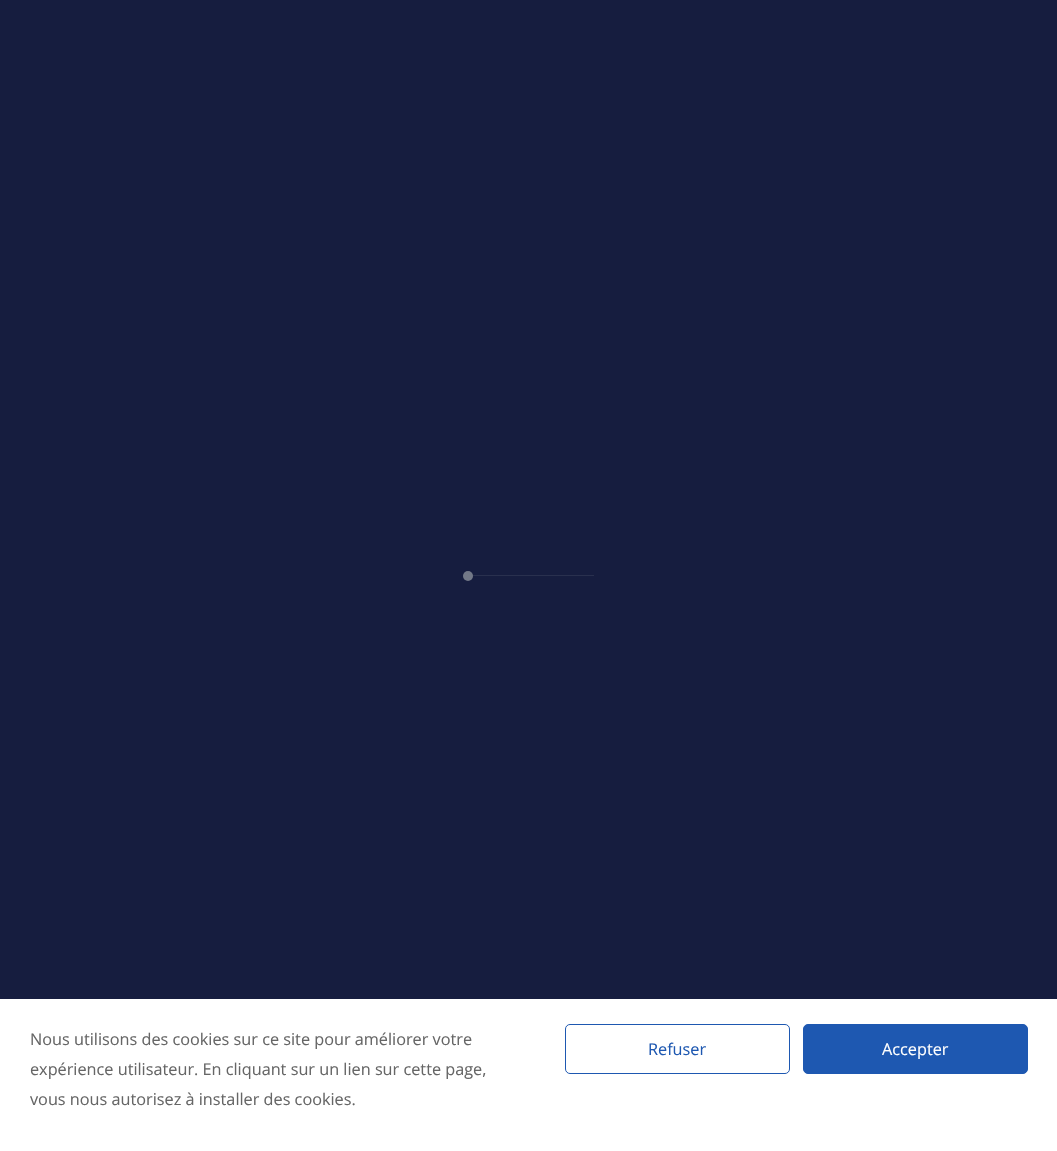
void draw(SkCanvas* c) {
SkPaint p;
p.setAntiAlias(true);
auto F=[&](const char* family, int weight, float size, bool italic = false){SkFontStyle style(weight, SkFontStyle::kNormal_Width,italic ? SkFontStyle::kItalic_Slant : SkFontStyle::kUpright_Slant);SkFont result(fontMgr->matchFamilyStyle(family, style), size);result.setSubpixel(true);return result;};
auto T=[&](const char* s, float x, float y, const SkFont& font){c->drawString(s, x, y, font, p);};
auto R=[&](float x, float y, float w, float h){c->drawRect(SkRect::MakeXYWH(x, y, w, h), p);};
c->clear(0xff161d3f);
p.setColor(0xff29304e);
R(463,575,131,1);
p.setColor(0xff727887);
c->drawCircle(468,576,5,p);
p.setColor(0xffffffff);
R(0,999,1057,152);
auto f1 = F("Open Sans",400,16.25);
p.setColor(0xff666666);
T("Nous utilisons des cookies sur ce site pour améliorer votre",30,1045,f1);
T("expérience utilisateur. En cliquant sur un lien sur cette page,",30,1075,f1);
T("vous nous autorisez à installer des cookies.",30,1105,f1);
p.setStroke(true);
p.setStrokeWidth(1);
p.setColor(0xff1e58b1);
c->drawRoundRect(SkRect::MakeXYWH(565.5,1024.5,224,49),4.5,4.5,p);
p.setStroke(false);
T("Refuser",648,1055,f1);
c->drawRoundRect(SkRect::MakeXYWH(803.5,1024.5,224,49),4.5,4.5,p);
p.setStroke(true);
c->drawRoundRect(SkRect::MakeXYWH(803.5,1024.5,224,49),4.5,4.5,p);
p.setStroke(false);
p.setColor(0xffffffff);
T("Accepter",882,1055,f1);
}
